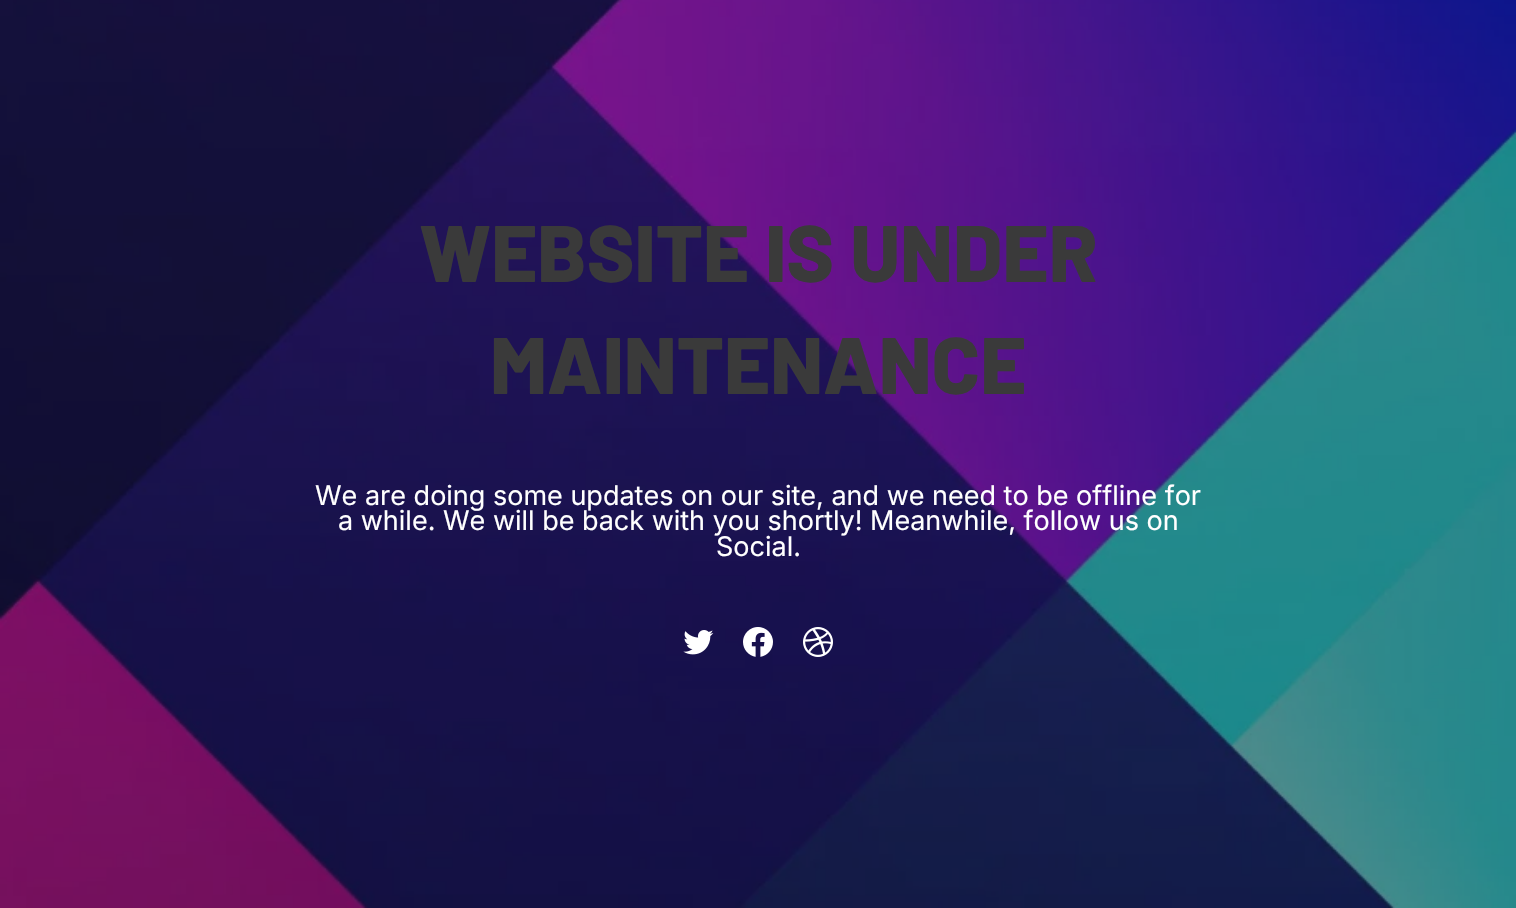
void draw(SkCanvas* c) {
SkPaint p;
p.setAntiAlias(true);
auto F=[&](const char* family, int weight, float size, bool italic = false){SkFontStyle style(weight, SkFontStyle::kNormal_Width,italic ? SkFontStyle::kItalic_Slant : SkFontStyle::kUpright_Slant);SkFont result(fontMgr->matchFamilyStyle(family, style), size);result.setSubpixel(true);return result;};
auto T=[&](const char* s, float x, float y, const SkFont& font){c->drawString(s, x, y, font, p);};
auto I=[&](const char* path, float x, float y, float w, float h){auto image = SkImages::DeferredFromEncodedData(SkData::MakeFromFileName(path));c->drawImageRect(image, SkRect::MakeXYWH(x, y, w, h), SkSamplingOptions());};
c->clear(0xff191717);
I("1.png",0,0,1516,908);
auto f1 = F("Barlow",800,80);
p.setColor(0xff3a3a3a);
T("WEBSITE IS UNDER",419,282,f1);
T("MAINTENANCE",490,394,f1);
auto f2 = F("Inter",400,27);
p.setColor(0xffffffff);
T("We are doing some updates on our site, and we need to be offline for",315,505,f2);
T("a while. We will be back with you shortly! Meanwhile, follow us on",338,530,f2);
T("Social.",716,556,f2);
I("2.png",683,630,31,25);
I("3.png",743,627,30,30);
I("4.png",803,627,30,30);
}
